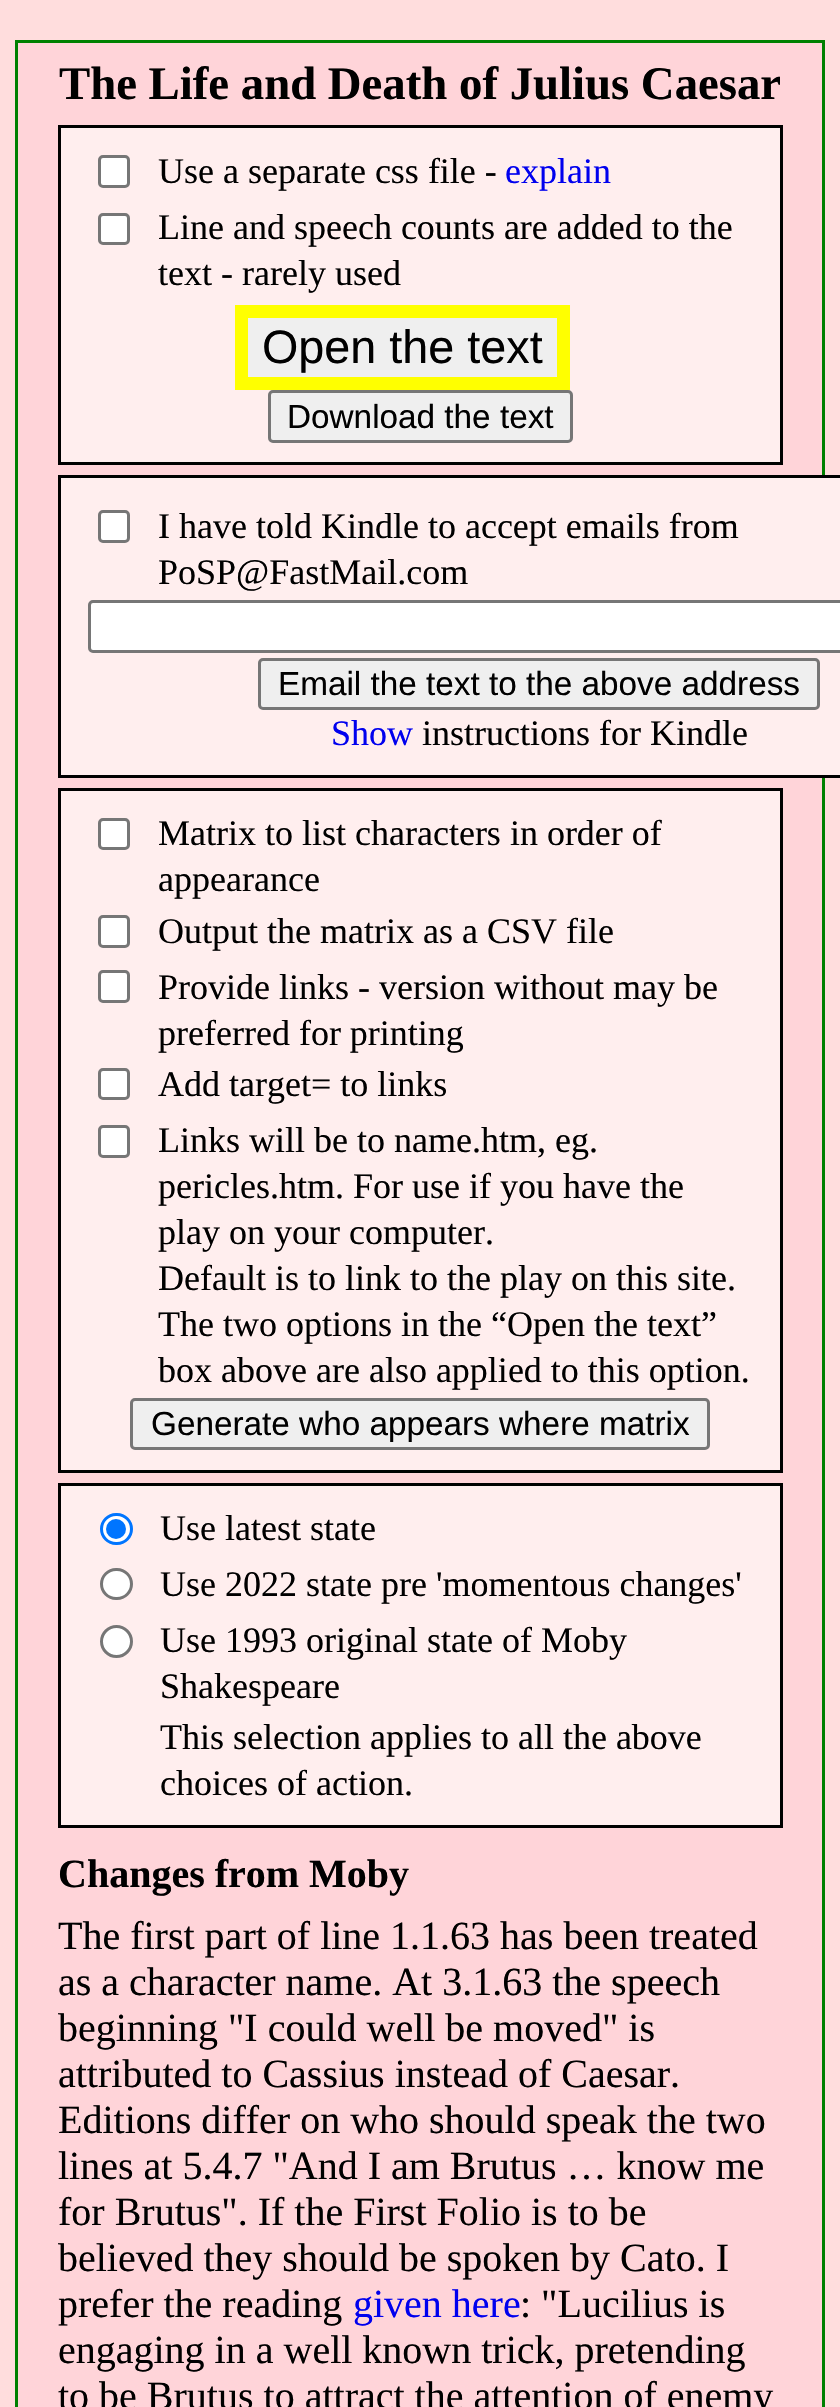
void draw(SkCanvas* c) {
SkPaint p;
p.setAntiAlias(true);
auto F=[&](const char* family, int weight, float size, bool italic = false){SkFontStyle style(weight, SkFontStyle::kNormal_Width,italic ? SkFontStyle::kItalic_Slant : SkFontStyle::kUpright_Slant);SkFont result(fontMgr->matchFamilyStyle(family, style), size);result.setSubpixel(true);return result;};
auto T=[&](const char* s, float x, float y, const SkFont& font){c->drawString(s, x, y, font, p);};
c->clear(0xffffdddd);
p.setColor(0xffffd4d9);
c->drawRect(SkRect::MakeXYWH(16.5,41.5,807,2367),p);
p.setStroke(true);
p.setStrokeWidth(3);
p.setColor(0xff008000);
c->drawRect(SkRect::MakeXYWH(16.5,41.5,807,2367),p);
auto f1 = F("Liberation Serif",700,46.75);
p.setStroke(false);
p.setColor(0xff000000);
T("The Life and Death of Julius Caesar",59,99,f1);
p.setColor(0xffffeeee);
c->drawRect(SkRect::MakeXYWH(59.5,126.5,722,337),p);
p.setStroke(true);
p.setColor(0xff000000);
c->drawRect(SkRect::MakeXYWH(59.5,126.5,722,337),p);
p.setStroke(false);
p.setColor(0xffffffff);
c->drawRoundRect(SkRect::MakeXYWH(99.5,156.5,29,30),3.5,3.5,p);
p.setStroke(true);
p.setColor(0xff767676);
c->drawRoundRect(SkRect::MakeXYWH(99.5,156.5,29,30),3.5,3.5,p);
auto f2 = F("Liberation Serif",400,36);
p.setStroke(false);
p.setColor(0xff000000);
T("Use a separate css file -",158,183,f2);
p.setColor(0xff0000ee);
T("explain",505,183,f2);
p.setColor(0xffffffff);
c->drawRoundRect(SkRect::MakeXYWH(99.5,214.5,29,29),3.5,3.5,p);
p.setStroke(true);
p.setColor(0xff767676);
c->drawRoundRect(SkRect::MakeXYWH(99.5,214.5,29,29),3.5,3.5,p);
p.setStroke(false);
p.setColor(0xff000000);
T("Line and speech counts are added to the",158,239,f2);
T("text - rarely used",158,285,f2);
p.setColor(0xffefefef);
c->drawRect(SkRect::MakeXYWH(241.5,311.5,322,72),p);
p.setStroke(true);
p.setStrokeWidth(13);
p.setColor(0xffffff00);
c->drawRect(SkRect::MakeXYWH(241.5,311.5,322,72),p);
auto f3 = F("Liberation Sans",400,46.75);
p.setStroke(false);
p.setColor(0xff000000);
T("Open the text",262,363,f3);
p.setColor(0xffefefef);
c->drawRoundRect(SkRect::MakeXYWH(269.5,391.5,302,50),3.5,3.5,p);
p.setStroke(true);
p.setStrokeWidth(3);
p.setColor(0xff767676);
c->drawRoundRect(SkRect::MakeXYWH(269.5,391.5,302,50),3.5,3.5,p);
auto f4 = F("Liberation Sans",400,33.3);
p.setStroke(false);
p.setColor(0xff000000);
T("Download the text",287,428,f4);
p.setColor(0xffffeeee);
c->drawRect(SkRect::MakeXYWH(59.5,476.5,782,300),p);
p.setStroke(true);
p.setColor(0xff000000);
c->drawRect(SkRect::MakeXYWH(59.5,476.5,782,300),p);
p.setStroke(false);
p.setColor(0xffffffff);
c->drawRoundRect(SkRect::MakeXYWH(99.5,511.5,29,30),3.5,3.5,p);
p.setStroke(true);
p.setColor(0xff767676);
c->drawRoundRect(SkRect::MakeXYWH(99.5,511.5,29,30),3.5,3.5,p);
p.setStroke(false);
p.setColor(0xff000000);
T("I have told Kindle to accept emails from",158,538,f2);
T("PoSP@FastMail.com",158,584,f2);
p.setColor(0xffffffff);
c->drawRoundRect(SkRect::MakeXYWH(89.5,601.5,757,50),3.5,3.5,p);
p.setStroke(true);
p.setColor(0xff767676);
c->drawRoundRect(SkRect::MakeXYWH(89.5,601.5,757,50),3.5,3.5,p);
p.setStroke(false);
p.setColor(0xffefefef);
c->drawRoundRect(SkRect::MakeXYWH(259.5,659.5,559,49),3.5,3.5,p);
p.setStroke(true);
p.setColor(0xff767676);
c->drawRoundRect(SkRect::MakeXYWH(259.5,659.5,559,49),3.5,3.5,p);
p.setStroke(false);
p.setColor(0xff000000);
T("Email the text to the above address",278,695,f4);
p.setColor(0xff0000ee);
T("Show",331,745,f2);
p.setColor(0xff000000);
T("instructions for Kindle",422,745,f2);
p.setColor(0xffffeeee);
c->drawRect(SkRect::MakeXYWH(59.5,789.5,722,682),p);
p.setStroke(true);
p.setColor(0xff000000);
c->drawRect(SkRect::MakeXYWH(59.5,789.5,722,682),p);
p.setStroke(false);
p.setColor(0xffffffff);
c->drawRoundRect(SkRect::MakeXYWH(99.5,819.5,29,29),3.5,3.5,p);
p.setStroke(true);
p.setColor(0xff767676);
c->drawRoundRect(SkRect::MakeXYWH(99.5,819.5,29,29),3.5,3.5,p);
p.setStroke(false);
p.setColor(0xff000000);
T("Matrix to list characters in order of",158,845,f2);
T("appearance",158,891,f2);
p.setColor(0xffffffff);
c->drawRoundRect(SkRect::MakeXYWH(99.5,916.5,29,30),3.5,3.5,p);
p.setStroke(true);
p.setColor(0xff767676);
c->drawRoundRect(SkRect::MakeXYWH(99.5,916.5,29,30),3.5,3.5,p);
p.setStroke(false);
p.setColor(0xff000000);
T("Output the matrix as a CSV file",158,943,f2);
p.setColor(0xffffffff);
c->drawRoundRect(SkRect::MakeXYWH(99.5,971.5,29,30),3.5,3.5,p);
p.setStroke(true);
p.setColor(0xff767676);
c->drawRoundRect(SkRect::MakeXYWH(99.5,971.5,29,30),3.5,3.5,p);
p.setStroke(false);
p.setColor(0xff000000);
T("Provide links - version without may be",158,999,f2);
T("preferred for printing",158,1045,f2);
p.setColor(0xffffffff);
c->drawRoundRect(SkRect::MakeXYWH(99.5,1069.5,29,29),3.5,3.5,p);
p.setStroke(true);
p.setColor(0xff767676);
c->drawRoundRect(SkRect::MakeXYWH(99.5,1069.5,29,29),3.5,3.5,p);
p.setStroke(false);
p.setColor(0xff000000);
T("Add target= to links",158,1096,f2);
p.setColor(0xffffffff);
c->drawRoundRect(SkRect::MakeXYWH(99.5,1126.5,29,30),3.5,3.5,p);
p.setStroke(true);
p.setColor(0xff767676);
c->drawRoundRect(SkRect::MakeXYWH(99.5,1126.5,29,30),3.5,3.5,p);
p.setStroke(false);
p.setColor(0xff000000);
T("Links will be to name.htm, eg.",158,1152,f2);
T("pericles.htm. For use if you have the",158,1198,f2);
T("play on your computer.",158,1244,f2);
T("Default is to link to the play on this site.",158,1290,f2);
T("The two options in the “Open the text”",158,1336,f2);
T("box above are also applied to this option.",158,1382,f2);
p.setColor(0xffefefef);
c->drawRoundRect(SkRect::MakeXYWH(131.5,1399.5,577,49),3.5,3.5,p);
p.setStroke(true);
p.setColor(0xff767676);
c->drawRoundRect(SkRect::MakeXYWH(131.5,1399.5,577,49),3.5,3.5,p);
p.setStroke(false);
p.setColor(0xff000000);
T("Generate who appears where matrix",151,1435,f4);
p.setColor(0xffffeeee);
c->drawRect(SkRect::MakeXYWH(59.5,1484.5,722,342),p);
p.setStroke(true);
p.setColor(0xff000000);
c->drawRect(SkRect::MakeXYWH(59.5,1484.5,722,342),p);
p.setStroke(false);
p.setColor(0xffffffff);
c->drawRoundRect(SkRect::MakeXYWH(101.5,1514.5,30,29),14.5,14.5,p);
p.setStroke(true);
p.setColor(0xff0075ff);
c->drawRoundRect(SkRect::MakeXYWH(101.5,1514.5,30,29),14.5,14.5,p);
p.setStroke(false);
c->drawCircle(116,1529,10,p);
p.setColor(0xff000000);
T("Use latest state",160,1540,f2);
p.setColor(0xffffffff);
c->drawRoundRect(SkRect::MakeXYWH(101.5,1569.5,30,29),14.5,14.5,p);
p.setStroke(true);
p.setColor(0xff767676);
c->drawRoundRect(SkRect::MakeXYWH(101.5,1569.5,30,29),14.5,14.5,p);
p.setStroke(false);
p.setColor(0xff000000);
T("Use 2022 state pre 'momentous changes'",160,1596,f2);
p.setColor(0xffffffff);
c->drawCircle(116.5,1641.5,15,p);
p.setStroke(true);
p.setColor(0xff767676);
c->drawCircle(116.5,1641.5,15,p);
p.setStroke(false);
p.setColor(0xff000000);
T("Use 1993 original state of Moby",160,1652,f2);
T("Shakespeare",160,1698,f2);
T("This selection applies to all the above",160,1749,f2);
T("choices of action.",160,1795,f2);
auto f5 = F("Liberation Serif",700,40);
T("Changes from Moby",58,1887,f5);
auto f6 = F("Liberation Serif",400,40);
T("The first part of line 1.1.63 has been treated",58,1949,f6);
T("as a character name. At 3.1.63 the speech",58,1995,f6);
T("beginning \"I could well be moved\" is",58,2041,f6);
T("attributed to Cassius instead of Caesar.",58,2087,f6);
T("Editions differ on who should speak the two",58,2133,f6);
T("lines at 5.4.7 \"And I am Brutus … know me",58,2179,f6);
T("for Brutus\". If the First Folio is to be",58,2225,f6);
T("believed they should be spoken by Cato. I",58,2271,f6);
T("prefer the reading",58,2317,f6);
p.setColor(0xff0000ee);
T("given here",353,2317,f6);
p.setColor(0xff000000);
T(": \"Lucilius is",520,2317,f6);
T("engaging in a well known trick, pretending",58,2363,f6);
T("to be Brutus to attract the attention of enemy",58,2409,f6);
}
